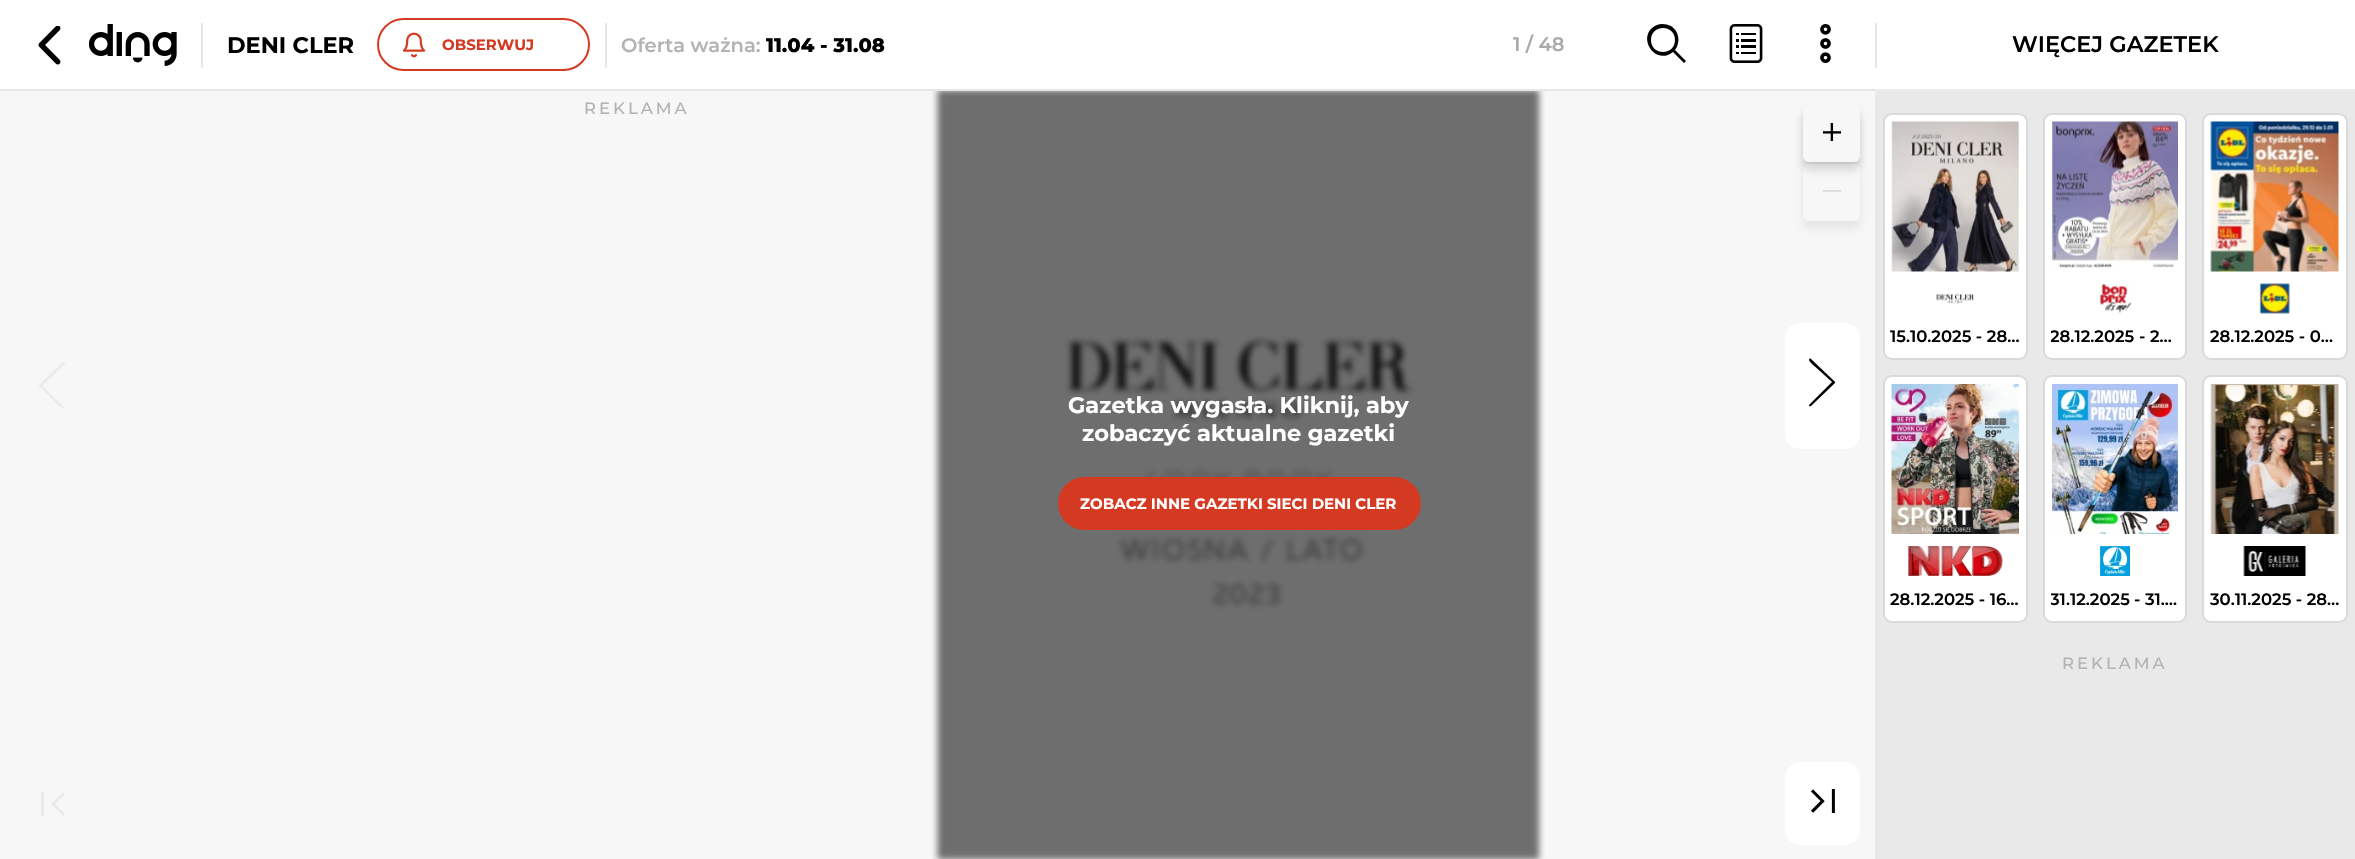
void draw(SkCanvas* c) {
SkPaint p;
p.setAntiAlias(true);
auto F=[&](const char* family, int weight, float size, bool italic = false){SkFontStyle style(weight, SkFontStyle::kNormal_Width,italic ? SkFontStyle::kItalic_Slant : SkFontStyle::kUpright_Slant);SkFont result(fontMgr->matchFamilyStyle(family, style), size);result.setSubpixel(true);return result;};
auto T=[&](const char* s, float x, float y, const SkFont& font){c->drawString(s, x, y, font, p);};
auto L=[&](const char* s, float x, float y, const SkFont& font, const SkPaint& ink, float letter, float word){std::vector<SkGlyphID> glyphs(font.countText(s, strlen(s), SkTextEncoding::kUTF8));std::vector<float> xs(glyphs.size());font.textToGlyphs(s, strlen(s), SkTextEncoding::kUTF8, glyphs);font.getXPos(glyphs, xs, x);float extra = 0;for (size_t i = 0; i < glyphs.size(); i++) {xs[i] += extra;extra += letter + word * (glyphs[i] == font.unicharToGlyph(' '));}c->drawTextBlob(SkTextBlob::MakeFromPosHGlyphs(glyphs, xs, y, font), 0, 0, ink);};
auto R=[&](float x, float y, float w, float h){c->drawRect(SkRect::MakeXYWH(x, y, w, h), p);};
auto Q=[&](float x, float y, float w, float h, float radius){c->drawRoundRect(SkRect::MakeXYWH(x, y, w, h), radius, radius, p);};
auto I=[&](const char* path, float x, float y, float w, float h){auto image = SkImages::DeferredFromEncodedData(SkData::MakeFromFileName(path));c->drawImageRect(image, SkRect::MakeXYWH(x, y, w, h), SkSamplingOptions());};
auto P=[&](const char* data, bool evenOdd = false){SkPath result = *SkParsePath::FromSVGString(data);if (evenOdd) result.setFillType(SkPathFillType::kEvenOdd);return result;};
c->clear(0xfff7f7f7);
p.setColor(0xffffffff);
R(0,0,2355,89);
p.setColor(0xffe6e6e6);
R(0,89,1875,2);
I("1.png",38,26,23,39);
I("2.png",89,24,88,42);
R(201,23,2,45);
auto f1 = F("Montserrat",700,22.5);
p.setColor(0xff000000);
T("DENI CLER",227,53,f1);
p.setStroke(true);
p.setStrokeWidth(2);
p.setColor(0xffd43921);
c->drawRoundRect(SkRect::MakeXYWH(378,19,211,51),25.5,25.5,p);
I("3.png",402,32,24,26);
auto f2 = F("Montserrat",700,15);
p.setStroke(false);
T("OBSERWUJ",442,50,f2);
p.setColor(0xffe6e6e6);
R(605,23,2,45);
auto f3 = F("Montserrat",600,19.5);
p.setColor(0xffb3b3b3);
T("Oferta ważna:",621,52,f3);
auto f4 = F("Montserrat",800,19.5);
p.setColor(0xff000000);
T("11.04 - 31.08",766,52,f4);
p.setColor(0xffaaaaaa);
T("1 / 48",1513,51,f3);
p.setColor(0xff000000);
c->drawPath(P("M1686 61l-11-11c6-8 4-19-4-24c-4-2-10-3-14-1c-22 9-3 42 16 27l11 11zm-35-21c0-16 24-16 24 0c0 16-24 16-24 0z"),p);
I("4.png",1729,24,34,39);
I("5.png",1820,24,11,39);
auto f5 = F("Montserrat",500,16.5);
p.setColor(0xffb3b3b3);
L("REKLAMA",584,114,f5,p,3,0);
I("6.png",932,91,613,768);
p.setColor(0xffffffff);
T("Gazetka wygasła. Kliknij, aby",1068,413,f1);
T("zobaczyć aktualne gazetki",1082,441,f1);
p.setColor(0xffd43921);
Q(1058,477,363,53,26.5);
p.setColor(0xffffffff);
T("ZOBACZ INNE GAZETKI SIECI DENI CLER",1080,509,f2);
p.setColor(0x33000000);
p.setMaskFilter(SkMaskFilter::MakeBlur(kNormal_SkBlurStyle, 4));
c->drawRoundRect(SkRect::MakeXYWH(1803,113,57,57),6,6,p);
p.setMaskFilter(nullptr);
p.setColor(0xfff7f7f7);
Q(1803,105,57,57,6);
I("7.png",1823,123,18,18);
c->save();
c->clipPath(P("M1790 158h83v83h-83zm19 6h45c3.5 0 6 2.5 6 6v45c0 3.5-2.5 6-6 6h-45c-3.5 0-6-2.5-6-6v-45c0-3.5 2.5-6 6-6z",true),true);
p.setColor(0x12000000);
p.setMaskFilter(SkMaskFilter::MakeBlur(kNormal_SkBlurStyle, 4));
c->drawRoundRect(SkRect::MakeXYWH(1803,171,57,57),6,6,p);
p.setMaskFilter(nullptr);
c->restore();
p.setColor(0x59f7f7f7);
Q(1803,164,57,57,6);
p.setColor(0xffdfdfdf);
R(1823,190,18,2);
p.setColor(0xffebebeb);
c->drawPath(P("M39 385l24-23c1-1 2 0 2 2l-23 22l19 18l4 4l-1 1h-1l-24-23z"),p);
p.setColor(0xffffffff);
Q(1785,323,75,126,15);
p.setColor(0xff000000);
c->drawPath(P("M1835 383l-24 23c-1 1-2 0-2-1l23-23l-11-10c-2-2-12-10-12-12c0-1 1-2 2-1l20 19c2 2 5 4 4 5z"),p);
I("8.png",41,792,24,24);
p.setColor(0xffffffff);
Q(1785,762,75,83,15);
I("9.png",1811,789,24,24);
p.setColor(0xffebebeb);
R(1875,89,480,2);
p.setColor(0xffe6e6e6);
R(1875,23,2,45);
auto f6 = F("Montserrat",600,22.5);
p.setColor(0xff000000);
T("WIĘCEJ GAZETEK",2012,52,f6);
p.setColor(0xffe9e9e9);
R(1875,91,480,768);
p.setColor(0xffffffff);
c->drawRoundRect(SkRect::MakeXYWH(1884,114,143,245),8,8,p);
p.setStroke(true);
p.setColor(0xffdadada);
c->drawRoundRect(SkRect::MakeXYWH(1884,114,143,245),8,8,p);
I("10.png",1891,121,128,151);
I("11.png",1936,293,38,11);
auto f7 = F("Montserrat",600,16.5);
p.setStroke(false);
p.setColor(0xff000000);
T("15.10.2025 - 28…",1890,342,f7);
p.setColor(0xffffffff);
c->drawRoundRect(SkRect::MakeXYWH(2044,114,142,245),8,8,p);
p.setStroke(true);
p.setColor(0xffdadada);
c->drawRoundRect(SkRect::MakeXYWH(2044,114,142,245),8,8,p);
I("12.png",2052,121,126,147);
I("13.png",2099,284,33,29);
c->save();
c->clipRect(SkRect::MakeXYWH(2051,326,129,21));
p.setStroke(false);
p.setColor(0xff000000);
T("28.12.2025",2050,342,f7);
c->restore();
T("- 2…",2139,342,f7);
p.setColor(0xffffffff);
c->drawRoundRect(SkRect::MakeXYWH(2203,114,144,245),8,8,p);
p.setStroke(true);
p.setColor(0xffdadada);
c->drawRoundRect(SkRect::MakeXYWH(2203,114,144,245),8,8,p);
I("14.png",2210,121,129,151);
I("15.png",2259,283,31,31);
p.setStroke(false);
p.setColor(0xff000000);
T("28.12.2025 - 0…",2210,342,f7);
p.setColor(0xffffffff);
c->drawRoundRect(SkRect::MakeXYWH(1884,376,143,246),8,8,p);
p.setStroke(true);
p.setColor(0xffdadada);
c->drawRoundRect(SkRect::MakeXYWH(1884,376,143,246),8,8,p);
I("16.png",1891,384,128,150);
I("17.png",1908,546,95,30);
p.setStroke(false);
p.setColor(0xff000000);
T("28.12.2025 - 16…",1890,605,f7);
p.setColor(0xffffffff);
c->drawRoundRect(SkRect::MakeXYWH(2044,376,142,246),8,8,p);
p.setStroke(true);
p.setColor(0xffdadada);
c->drawRoundRect(SkRect::MakeXYWH(2044,376,142,246),8,8,p);
I("18.png",2052,384,126,150);
I("19.png",2100,546,30,30);
c->save();
c->clipRect(SkRect::MakeXYWH(2051,588,129,21));
p.setStroke(false);
p.setColor(0xff000000);
T("31.12.2025",2050,605,f7);
c->restore();
T("- 31.…",2134,605,f7);
p.setColor(0xffffffff);
c->drawRoundRect(SkRect::MakeXYWH(2203,376,144,246),8,8,p);
p.setStroke(true);
p.setColor(0xffdadada);
c->drawRoundRect(SkRect::MakeXYWH(2203,376,144,246),8,8,p);
I("20.png",2210,384,129,150);
I("21.png",2243,546,63,30);
p.setStroke(false);
p.setColor(0xff000000);
T("30.11.2025 - 28…",2210,605,f7);
p.setColor(0xffb3b3b3);
L("REKLAMA",2062,669,f5,p,3,0);
}
